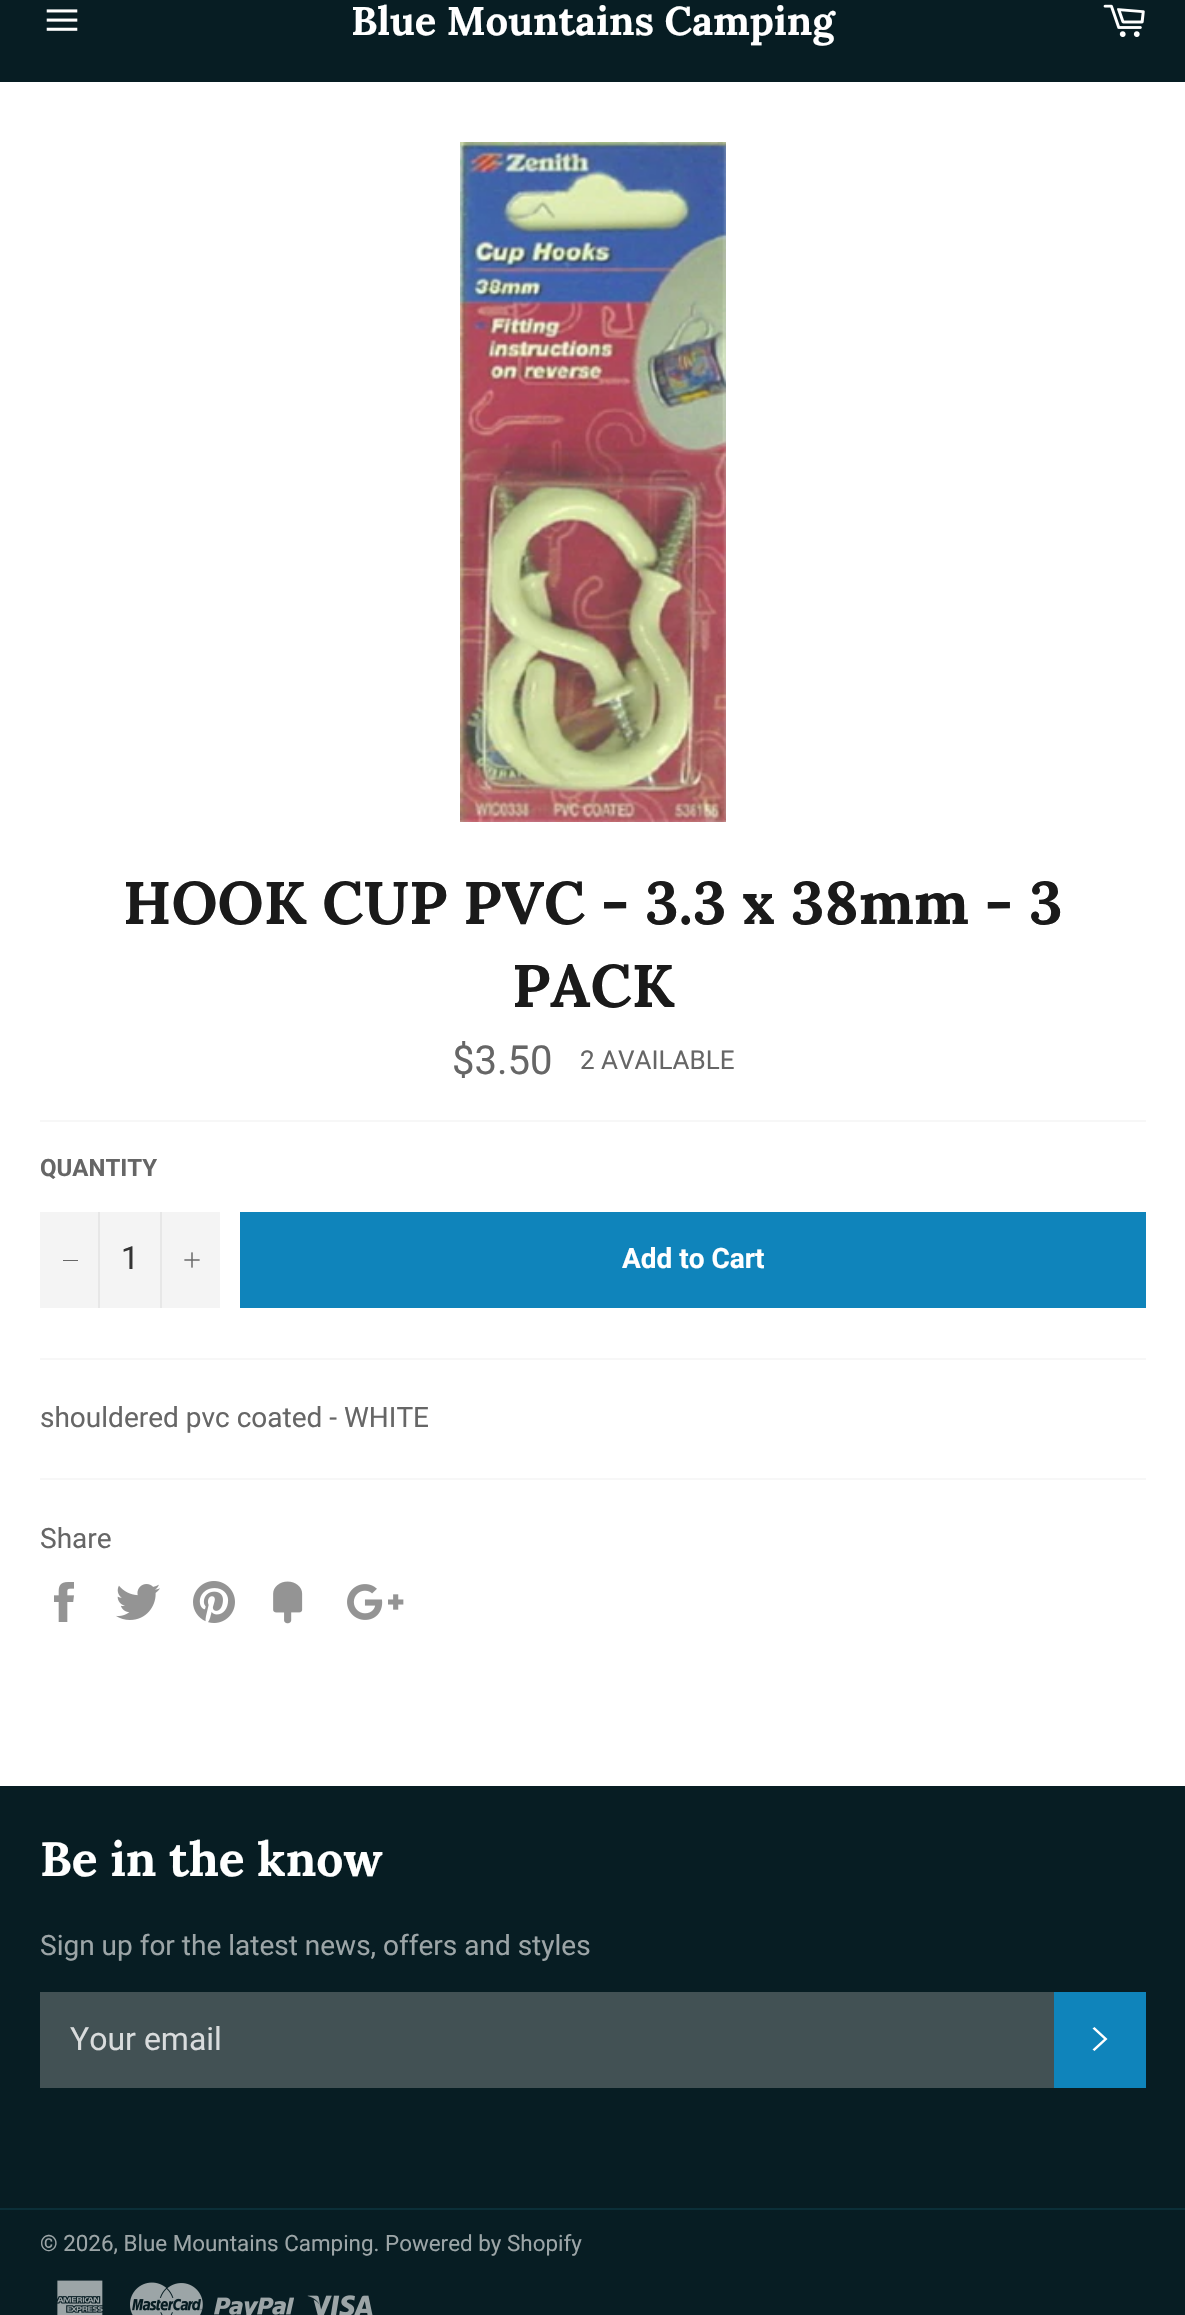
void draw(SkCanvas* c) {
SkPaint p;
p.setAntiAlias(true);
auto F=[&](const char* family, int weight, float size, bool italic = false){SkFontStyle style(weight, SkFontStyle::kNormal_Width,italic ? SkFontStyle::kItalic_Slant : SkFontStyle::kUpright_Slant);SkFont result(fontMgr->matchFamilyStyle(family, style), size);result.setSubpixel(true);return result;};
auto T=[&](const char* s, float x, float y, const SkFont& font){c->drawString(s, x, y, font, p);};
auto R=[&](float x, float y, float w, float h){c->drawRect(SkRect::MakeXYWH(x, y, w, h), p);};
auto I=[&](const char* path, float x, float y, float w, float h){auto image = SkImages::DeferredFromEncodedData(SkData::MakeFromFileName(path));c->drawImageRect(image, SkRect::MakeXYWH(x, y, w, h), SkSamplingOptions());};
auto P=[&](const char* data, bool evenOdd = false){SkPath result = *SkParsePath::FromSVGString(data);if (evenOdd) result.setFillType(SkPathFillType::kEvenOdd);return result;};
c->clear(0xffffffff);
p.setColor(0xff071d23);
R(0,0,1185,82);
I("1.png",46,9,32,22);
auto f1 = F("Lora",700,40);
p.setColor(0xffffffff);
T("Blue Mountains Camping",351,35,f1);
I("2.png",1103,4,42,33);
I("3.png",460,142,266,680);
auto f2 = F("Lora",700,60);
p.setColor(0xff1a1a1a);
T("HOOK CUP PVC - 3.3 x 38mm - 3",123,924,f2);
T("PACK",512,1007,f2);
auto f3 = F("Roboto",400,40);
p.setColor(0xff666666);
T("$3.50",452,1074,f3);
auto f4 = F("Roboto",400,26);
T("2 AVAILABLE",580,1069,f4);
p.setColor(0xfff7f7f7);
R(40,1120,1106,2);
auto f5 = F("Roboto",700,24);
p.setColor(0xff666666);
T("QUANTITY",40,1176,f5);
p.setColor(0xfff4f4f4);
R(40,1212,180,96);
p.setColor(0xffe7e7e7);
R(98,1212,2,96);
p.setColor(0xff666666);
R(63,1260,15,1);
auto f6 = F("Roboto",400,32);
p.setColor(0xff333333);
T("1",121,1269,f6);
p.setColor(0xffe7e7e7);
R(160,1212,2,96);
I("4.png",184,1252,16,16);
p.setColor(0xff0f84bb);
R(240,1212,906,96);
auto f7 = F("Roboto",700,28);
p.setColor(0xffffffff);
T("Add to Cart",622,1268,f7);
p.setColor(0xfff7f7f7);
R(40,1358,1106,2);
auto f8 = F("Roboto",400,28);
p.setColor(0xff666666);
T("shouldered pvc coated - WHITE",40,1427,f8);
p.setColor(0xfff7f7f7);
R(40,1478,1106,2);
p.setColor(0xff666666);
T("Share",40,1548,f8);
I("5.png",54,1582,20,40);
I("6.png",116,1584,44,36);
I("7.png",193,1581,42,42);
I("8.png",273,1581,30,43);
I("9.png",347,1584,57,36);
p.setColor(0xff071d23);
R(0,1786,1185,529);
auto f9 = F("Lora",700,48);
p.setColor(0xffffffff);
T("Be in the know",40,1876,f9);
p.setColor(0xff9ca5a7);
T("Sign up for the latest news, offers and styles",40,1955,f8);
p.setColor(0xff425154);
R(40,1992,1014,96);
p.setColor(0xffd9dcdd);
T("Your email",70,2050,f6);
p.setColor(0xff0f84bb);
R(1054,1992,92,96);
p.setColor(0xffffffff);
c->drawPath(P("M1092.5 2028.5l2-1.5l13 12l-13 12l-2-1.5l11.5-10.5z"),p);
p.setColor(0xff0b2f38);
R(0,2208,1185,2);
auto f10 = F("Roboto",400,22.4);
p.setColor(0xff9ca5a7);
T("© 2026, Blue Mountains Camping. Powered by Shopify",40,2251,f10);
I("10.png",57,2280,46,35);
I("11.png",130,2282,73,33);
I("12.png",214,2297,80,18);
I("13.png",307,2295,66,20);
}
